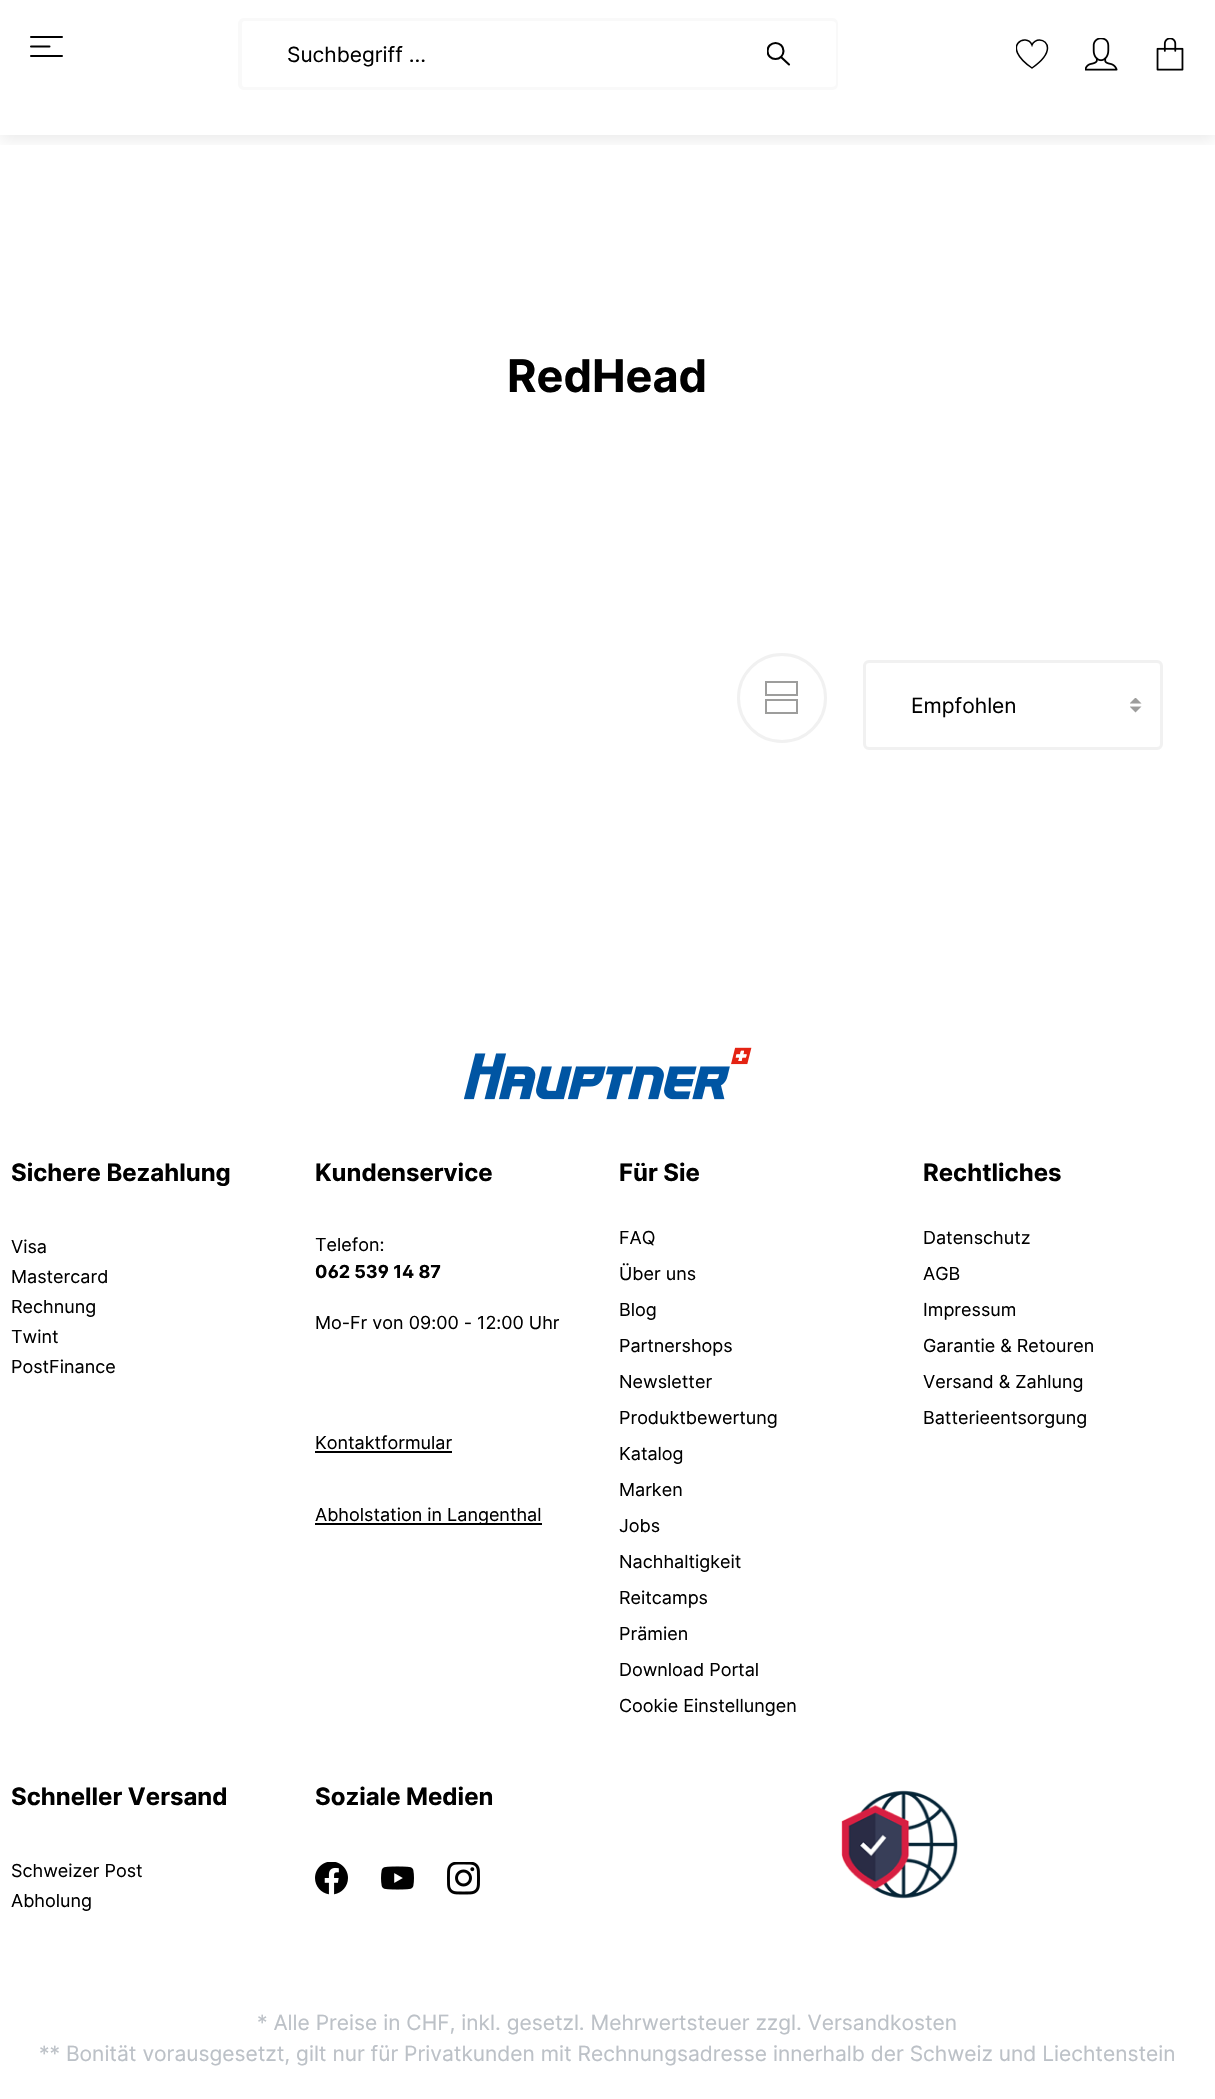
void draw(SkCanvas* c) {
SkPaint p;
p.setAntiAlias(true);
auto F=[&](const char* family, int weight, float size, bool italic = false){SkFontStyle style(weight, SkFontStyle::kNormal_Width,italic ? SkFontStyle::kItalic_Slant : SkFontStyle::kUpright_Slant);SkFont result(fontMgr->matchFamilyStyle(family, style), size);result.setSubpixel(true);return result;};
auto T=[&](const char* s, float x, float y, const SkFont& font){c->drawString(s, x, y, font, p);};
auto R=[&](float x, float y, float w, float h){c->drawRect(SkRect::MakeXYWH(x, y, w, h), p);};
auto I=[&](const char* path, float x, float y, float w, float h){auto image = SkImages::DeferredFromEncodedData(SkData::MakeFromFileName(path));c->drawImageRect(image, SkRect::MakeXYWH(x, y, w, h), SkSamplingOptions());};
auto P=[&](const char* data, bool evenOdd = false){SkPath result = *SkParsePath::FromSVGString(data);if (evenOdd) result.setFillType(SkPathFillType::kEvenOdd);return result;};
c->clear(0xffffffff);
c->save();
c->clipRect(SkRect::MakeXYWH(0,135,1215,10));
p.setColor(0x14000000);
p.setMaskFilter(SkMaskFilter::MakeBlur(kNormal_SkBlurStyle, 7.5));
c->drawRect(SkRect::MakeXYWH(0,-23,1215,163),p);
p.setMaskFilter(nullptr);
c->restore();
p.setStroke(true);
p.setStrokeWidth(2);
p.setStrokeCap(SkPaint::kRound_Cap);
p.setStrokeJoin(SkPaint::kRound_Join);
p.setColor(0xff000000);
c->drawPath(P("M31 37h31m-31 9.5h18.5m-18.5 9.5h31"),p);
p.setStroke(false);
p.setColor(0xfff9f9f9);
c->drawPath(P("M244 18h506v72h-506c-3 0-6-3-6-6v-60c0-3 3-6 6-6zm0 3h506v66h-506c-1 0-2-1-2-3v-60c0-2 1-3 2-3z",true),p);
auto f1 = F("Inter",400,21);
p.setColor(0xff000000);
T("Suchbegriff ...",287,62,f1);
p.setColor(0xffffffff);
c->drawPath(P("M749 18h84c3.5 0 6 2.5 6 6v60c0 3.5-2.5 6-6 6h-84z"),p);
p.setColor(0xfff9f9f9);
c->drawPath(P("M748 18h84c4 0 6 3 6 6v60c0 3-2 6-6 6h-84zm0 3h84c2 0 4 1 4 3v60c0 2-2 3-4 3h-84z",true),p);
p.setStroke(true);
p.setStrokeWidth(2.1);
p.setColor(0xff000000);
c->drawPath(P("M781.5 57.5l7.5 7"),p);
c->save();
c->clipRect(SkRect::MakeXYWH(767,38,24,33));
p.setStrokeCap(SkPaint::kButt_Cap);
p.setStrokeJoin(SkPaint::kMiter_Join);
c->drawCircle(775.5,51,8,p);
c->restore();
c->save();
c->clipRect(SkRect::MakeXYWH(1016,38,33,33));
p.setStrokeWidth(1.5);
c->drawPath(P("M1039.5 40c-3 0-6.5 2-7.5 5c-5-13-32.5 .5 0 23c10-7 15.5-13.5 15.5-20c0-4.5-3.5-8-8-8z"),p);
c->restore();
I("1.png",1085,38,33,33);
I("2.png",1156,38,28,33);
auto f2 = F("Inter",700,45);
p.setStroke(false);
T("RedHead",507,392,f2);
p.setStroke(true);
p.setStrokeWidth(3);
p.setColor(0xfff1f1f1);
c->drawCircle(782,698,43.5,p);
p.setStrokeWidth(2);
p.setColor(0xff9d9d9c);
c->drawRect(SkRect::MakeXYWH(766,682,31,13),p);
c->drawRect(SkRect::MakeXYWH(766,700,31,13),p);
I("3.png",1130,698,12,15);
p.setStrokeWidth(3);
p.setColor(0xfff1f1f1);
c->drawRoundRect(SkRect::MakeXYWH(864.5,661.5,297,87),4.5,4.5,p);
p.setStroke(false);
p.setColor(0xff000000);
T("Empfohlen",911,713,f1);
I("4.png",464,1047,288,53);
auto f3 = F("Inter",700,24);
T("Sichere Bezahlung",11,1181,f3);
auto f4 = F("Inter",400,18);
T("Visa",11,1253,f4);
T("Mastercard",11,1283,f4);
T("Rechnung",11,1313,f4);
T("Twint",11,1343,f4);
T("PostFinance",11,1373,f4);
T("Kundenservice",315,1181,f3);
T("Telefon:",315,1251,f4);
auto f5 = F("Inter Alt",700,18);
T("062 539 14 87",315,1278,f5);
T("Mo-Fr von 09:00 - 12:00 Uhr",315,1329,f4);
T("Kontaktformular",315,1449,f4);
R(315,1451,137,2);
R(315,1523,227,2);
T("Abholstation in Langenthal",315,1521,f4);
T("Für Sie",619,1181,f3);
T("FAQ",619,1244,f4);
T("Über uns",619,1280,f4);
T("Blog",619,1316,f4);
T("Partnershops",619,1352,f4);
T("Newsletter",619,1388,f4);
T("Produktbewertung",619,1424,f4);
T("Katalog",619,1460,f4);
T("Marken",619,1496,f4);
T("Jobs",619,1532,f4);
T("Nachhaltigkeit",619,1568,f4);
T("Reitcamps",619,1604,f4);
T("Prämien",619,1640,f4);
T("Download Portal",619,1676,f4);
T("Cookie Einstellungen",619,1712,f4);
T("Rechtliches",923,1181,f3);
T("Datenschutz",923,1244,f4);
T("AGB",923,1280,f4);
T("Impressum",923,1316,f4);
T("Garantie & Retouren",923,1352,f4);
T("Versand & Zahlung",923,1388,f4);
T("Batterieentsorgung",923,1424,f4);
T("Schneller Versand",11,1805,f3);
T("Schweizer Post",11,1877,f4);
T("Abholung",11,1907,f4);
T("Soziale Medien",315,1805,f3);
I("5.png",315,1862,33,33);
I("6.png",381,1866,33,24);
I("7.png",447,1862,33,33);
I("8.png",841,1790,117,109);
p.setColor(0xffbcc1c7);
T("* Alle Preise in CHF, inkl. gesetzl. Mehrwertsteuer zzgl. Versandkosten",257,2030,f1);
T("** Bonität vorausgesetzt, gilt nur für Privatkunden mit Rechnungsadresse innerhalb der Schweiz und Liechtenstein",39,2061,f1);
}
